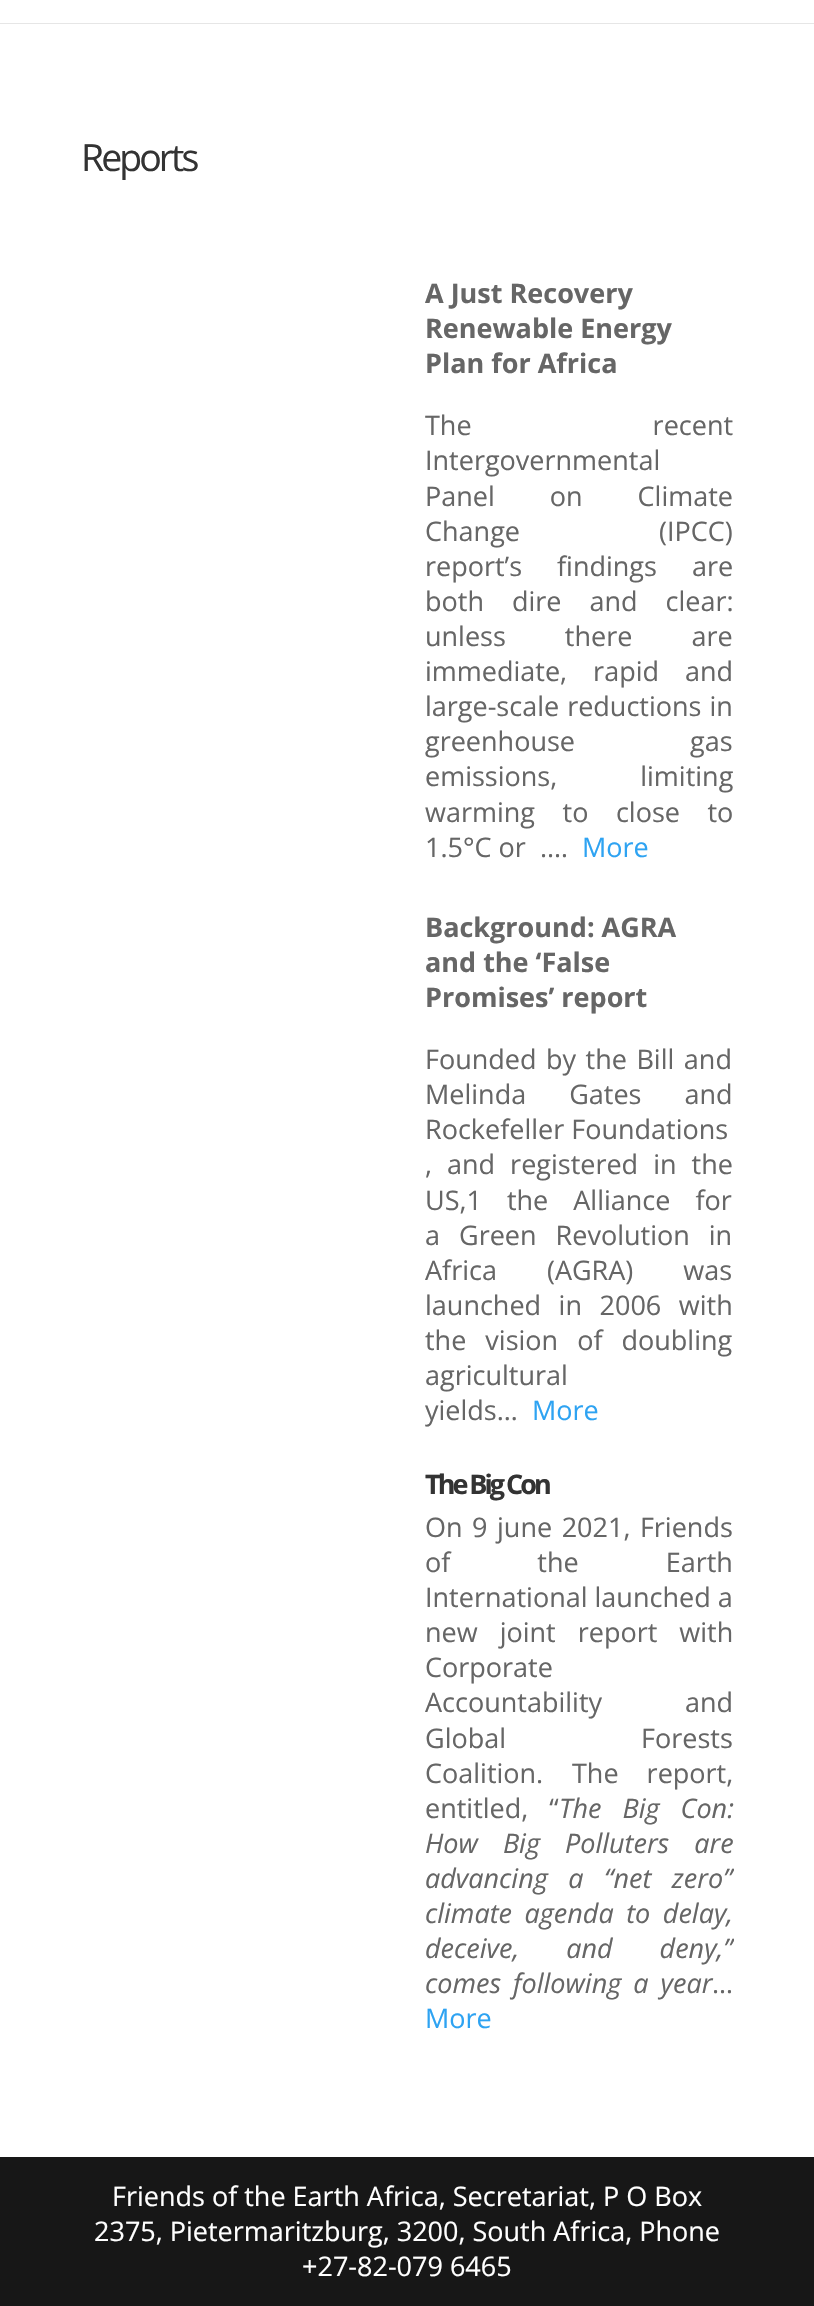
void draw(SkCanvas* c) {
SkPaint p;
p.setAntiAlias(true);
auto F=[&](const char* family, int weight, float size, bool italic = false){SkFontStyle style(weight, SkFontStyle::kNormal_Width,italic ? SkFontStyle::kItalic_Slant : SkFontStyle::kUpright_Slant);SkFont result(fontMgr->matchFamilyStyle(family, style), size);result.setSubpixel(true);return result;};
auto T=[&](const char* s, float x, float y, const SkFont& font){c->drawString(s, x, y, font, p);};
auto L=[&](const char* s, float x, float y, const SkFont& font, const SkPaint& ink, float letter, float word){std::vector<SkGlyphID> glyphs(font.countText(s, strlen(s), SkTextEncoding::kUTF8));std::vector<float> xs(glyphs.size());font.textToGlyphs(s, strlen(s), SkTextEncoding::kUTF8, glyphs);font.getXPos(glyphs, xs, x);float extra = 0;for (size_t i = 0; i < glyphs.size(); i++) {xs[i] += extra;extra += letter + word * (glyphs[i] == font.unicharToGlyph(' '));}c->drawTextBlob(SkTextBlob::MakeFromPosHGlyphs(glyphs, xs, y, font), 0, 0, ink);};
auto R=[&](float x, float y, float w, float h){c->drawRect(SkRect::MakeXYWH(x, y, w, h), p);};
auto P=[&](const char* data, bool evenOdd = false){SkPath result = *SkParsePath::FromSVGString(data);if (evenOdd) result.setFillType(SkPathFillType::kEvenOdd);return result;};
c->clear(0xffffffff);
p.setColor(0xffe6e6e6);
c->drawPath(P("M0 22v2h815v-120h-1v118z"),p);
p.setColor(0xffffffff);
R(0,22,814,1);
auto f1 = F("Open Sans",400,37.5);
p.setColor(0xff333333);
L("Reports",81,171,f1,p,-3,0);
auto f2 = F("Open Sans",700,27);
p.setColor(0xff666666);
T("A Just Recovery",425,303,f2);
T("Renewable Energy",425,338,f2);
T("Plan for Africa",425,373,f2);
auto f3 = F("Open Sans",400,27);
L("The recent",425,435,f3,p,0,174);
T("Intergovernmental",425,470,f3);
L("Panel on Climate",425,506,f3,p,0,48);
L("Change (IPCC)",425,541,f3,p,0,132);
T("report’s",425,576,f3);
L("findings are",557,576,f3,p,0,28);
L("both dire and clear:",425,611,f3,p,0,21);
L("unless there are",425,646,f3,p,0,52);
L("immediate, rapid and",425,681,f3,p,0,19);
L("large-scale reductions in",425,716,f3,p,0,1);
L("greenhouse gas",425,751,f3,p,0,108);
L("emissions, limiting",425,786,f3,p,0,76);
L("warming to close to",425,822,f3,p,0,20.5);
T("1.5°C or",425,857,f3);
T(".…",540,857,f3);
p.setColor(0xff2ea3f2);
T("More",582,857,f3);
p.setColor(0xff666666);
T("Background: AGRA",425,937,f2);
T("and the ‘False",425,972,f2);
T("Promises’ report",425,1007,f2);
L("Founded by the Bill and",425,1069,f3,p,0,2.5);
L("Melinda Gates and",425,1104,f3,p,0,36);
T("Rockefeller Foundations",425,1139,f3);
L(", and registered in the",425,1174,f3,p,0,8);
L("US,1 the Alliance for",425,1210,f3,p,0,18);
L("a Green Revolution in",425,1245,f3,p,0,12);
L("Africa (AGRA) was",425,1280,f3,p,0,43);
L("launched in 2006 with",425,1315,f3,p,0,10.5);
L("the vision of doubling",425,1350,f3,p,0,12);
T("agricultural",425,1385,f3);
T("yields…",425,1420,f3);
p.setColor(0xff2ea3f2);
T("More",532,1420,f3);
p.setColor(0xff333333);
L("The Big Con",425,1494,f2,p,-3,0);
p.setColor(0xff666666);
L("On 9 june 2021, Friends",425,1537,f3,p,0,2.5);
L("of the Earth",425,1572,f3,p,0,80);
T("International launched a",425,1607,f3);
L("new joint report with",425,1642,f3,p,0,15);
T("Corporate",425,1677,f3);
L("Accountability and",425,1712,f3,p,0,76);
L("Global Forests",425,1748,f3,p,0,128);
T("Coalition.",425,1783,f3);
L("The report,",572,1783,f3,p,0,21);
L("entitled, “",425,1818,f3,p,0,14);
auto f4 = F("Open Sans",400,27,true);
L("The Big Con:",559,1818,f4,p,0,14);
L("How Big Polluters are",425,1853,f4,p,0,18);
c->save();
c->clipRect(SkRect::MakeXYWH(81,231,653,1851));
L("advancing a “net zero”",425,1888,f4,p,0,13.5);
c->restore();
L("climate agenda to delay,",425,1923,f4,p,0,5.5);
c->save();
c->clipRect(SkRect::MakeXYWH(81,231,653,1851));
L("deceive, and deny,”",425,1958,f4,p,0,40);
c->restore();
L("comes following a year",425,1993,f4,p,0,5);
T("…",712,1993,f3);
p.setColor(0xff2ea3f2);
T("More",425,2028,f3);
p.setColor(0xff171717);
R(0,2157,814,149);
p.setColor(0xffffffff);
T("Friends of the Earth Africa, Secretariat, P O Box",112,2206,f3);
T("2375, Pietermaritzburg, 3200, South Africa, Phone",94,2241,f3);
T("+27-82-079 6465",302,2276,f3);
}
